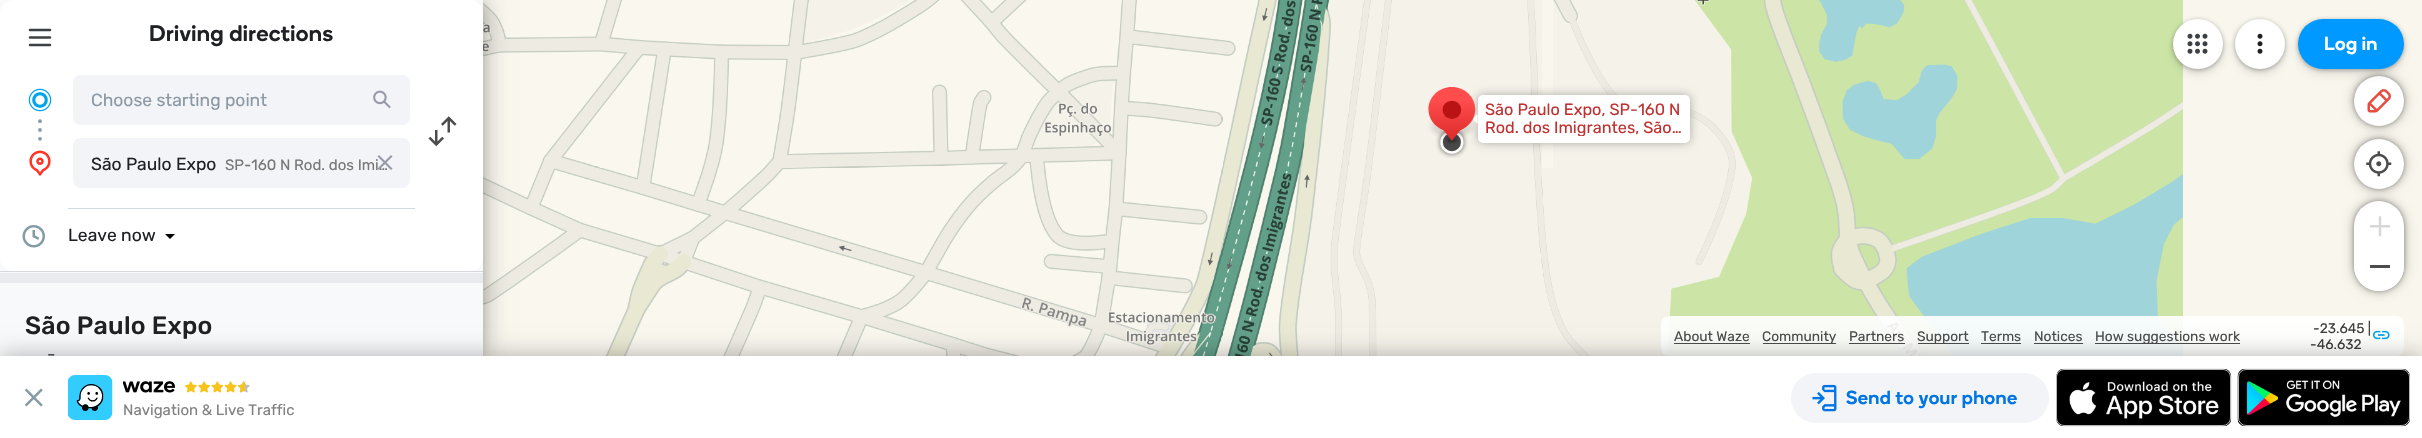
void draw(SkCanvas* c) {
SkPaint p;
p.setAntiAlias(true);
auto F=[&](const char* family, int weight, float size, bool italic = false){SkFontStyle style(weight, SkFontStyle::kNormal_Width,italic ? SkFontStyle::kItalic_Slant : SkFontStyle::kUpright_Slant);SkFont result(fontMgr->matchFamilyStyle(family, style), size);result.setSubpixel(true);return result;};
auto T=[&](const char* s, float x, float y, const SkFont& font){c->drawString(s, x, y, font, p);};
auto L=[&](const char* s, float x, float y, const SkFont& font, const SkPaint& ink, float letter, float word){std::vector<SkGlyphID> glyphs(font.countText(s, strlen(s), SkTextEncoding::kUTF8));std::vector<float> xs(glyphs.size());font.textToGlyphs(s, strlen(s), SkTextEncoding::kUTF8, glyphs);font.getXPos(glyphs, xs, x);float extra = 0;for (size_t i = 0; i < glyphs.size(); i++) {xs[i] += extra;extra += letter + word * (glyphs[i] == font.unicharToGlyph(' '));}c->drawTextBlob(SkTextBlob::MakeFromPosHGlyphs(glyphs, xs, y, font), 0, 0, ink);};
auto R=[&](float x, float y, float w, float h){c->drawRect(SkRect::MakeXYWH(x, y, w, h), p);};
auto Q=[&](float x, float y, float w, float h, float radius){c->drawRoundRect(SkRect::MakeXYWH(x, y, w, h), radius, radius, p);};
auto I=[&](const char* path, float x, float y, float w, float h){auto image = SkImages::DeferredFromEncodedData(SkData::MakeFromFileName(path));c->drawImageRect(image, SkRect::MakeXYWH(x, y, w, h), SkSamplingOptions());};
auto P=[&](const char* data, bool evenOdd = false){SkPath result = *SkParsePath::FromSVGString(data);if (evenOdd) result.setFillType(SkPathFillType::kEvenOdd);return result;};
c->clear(0xfff9f6ed);
I("8.png",483,0,100,168);
I("14.png",483,168,100,188);
p.setColor(0x1f000000);
p.setMaskFilter(SkMaskFilter::MakeBlur(kNormal_SkBlurStyle, 5));
c->drawRect(SkRect::MakeXYWH(0,3,483,356),p);
p.setMaskFilter(nullptr);
p.setColor(0x4d000000);
p.setMaskFilter(SkMaskFilter::MakeBlur(kNormal_SkBlurStyle, 12.5));
c->drawRect(SkRect::MakeXYWH(0,0,483,356),p);
p.setMaskFilter(nullptr);
p.setColor(0xfff8f9fa);
R(0,0,483,356);
p.setColor(0xffffffff);
c->drawPath(P("M13 0h457c7 0 13 6 13 13v62h-483v-62c0-7 6-13 13-13z"),p);
I("1.png",28,28,24,19);
auto f1 = F("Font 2",500,22.5);
p.setColor(0xff202124);
L("Driving directions",149,41,f1,p,.4,0);
p.setColor(0xffffffff);
R(0,75,483,133);
p.setColor(0xff869ca7);
c->drawCircle(40,121.2,1.9,p);
c->drawCircle(40,130,1.9,p);
c->drawCircle(40,138.8,1.9,p);
I("2.png",28,88,24,24);
p.setColor(0xfff2f4f7);
Q(73,75,337,50,8);
auto f2 = F("Rubik",400,17.5);
p.setColor(0xff8b98a5);
T("Choose starting point",91,106,f2);
I("3.png",373,90,18,19);
I("4.png",428,116,29,31);
I("5.png",29,150,22,26);
p.setColor(0xfff2f4f7);
Q(73,138,337,50,8);
auto f3 = F("Rubik",400,15);
p.setColor(0xff777777);
T("SP-160 N Rod. dos Imi…",225,170,f3);
I("6.png",377,155,16,15);
p.setColor(0xff202124);
T("São Paulo Expo",91,170,f2);
p.setColor(0xffffffff);
c->drawPath(P("M0 208h483v50c0 7-6 13-13 13h-457c-7 0-13-6-13-13z"),p);
p.setColor(0xffd3dae0);
R(68,208,347,1);
I("7.png",22,225,23,23);
p.setColor(0xff202124);
T("Leave now",68,241,f2);
p.setColor(0xff000000);
c->drawPath(P("M165 234h10l-5 5z"),p);
p.setColor(0xffd5d7db);
R(0,271,483,1);
p.setColor(0xffe8eaed);
R(0,273,483,10);
auto f4 = F("Rubik",500,25);
p.setColor(0xff202124);
L("São Paulo Expo",25,334,f4,p,.25,0);
p.setColor(0xff55595e);
T("-",47,360,f2);
I("9.png",583,0,320,168);
I("10.png",903,0,320,168);
I("11.png",1223,0,319,168);
I("12.png",1553,0,310,168);
I("13.png",1863,0,320,168);
I("15.png",583,168,320,188);
I("16.png",903,168,320,188);
I("17.png",1223,168,320,188);
I("18.png",1543,168,320,188);
I("19.png",1863,168,320,188);
p.setColor(0x4d000000);
p.setMaskFilter(SkMaskFilter::MakeBlur(kNormal_SkBlurStyle, 5));
c->drawRoundRect(SkRect::MakeXYWH(1478,95,212,48),5,5,p);
p.setMaskFilter(nullptr);
p.setColor(0xffffffff);
c->drawPath(P("M1477.5 114v10l-5-5z"),p);
I("20.png",1427,87,49,71);
Q(1478,95,212,48,5);
auto f5 = F("Rubik",400,16.25);
p.setColor(0xffc03131);
T("São Paulo Expo, SP-160 N",1485,115,f5);
c->save();
c->clipRect(SkRect::MakeXYWH(1485,101,198,35));
T("Rod. dos Imigrantes, São…",1485,133,f5);
c->restore();
p.setColor(0x4d000000);
p.setMaskFilter(SkMaskFilter::MakeBlur(kNormal_SkBlurStyle, 6));
c->drawRoundRect(SkRect::MakeXYWH(2354,76,50,50),25,25,p);
p.setMaskFilter(nullptr);
p.setMaskFilter(SkMaskFilter::MakeBlur(kNormal_SkBlurStyle, 2.5));
c->drawRoundRect(SkRect::MakeXYWH(2354,76,50,50),25,25,p);
p.setMaskFilter(nullptr);
p.setColor(0xffffffff);
c->drawCircle(2379,101,25,p);
I("21.png",2367,89,24,24);
p.setColor(0x4d000000);
p.setMaskFilter(SkMaskFilter::MakeBlur(kNormal_SkBlurStyle, 6));
c->drawRoundRect(SkRect::MakeXYWH(2354,139,50,50),25,25,p);
p.setMaskFilter(nullptr);
p.setMaskFilter(SkMaskFilter::MakeBlur(kNormal_SkBlurStyle, 2.5));
c->drawRoundRect(SkRect::MakeXYWH(2354,139,50,50),25,25,p);
p.setMaskFilter(nullptr);
p.setColor(0xffffffff);
c->drawCircle(2379,164,25,p);
I("22.png",2366,151,26,26);
p.setColor(0x4d000000);
p.setMaskFilter(SkMaskFilter::MakeBlur(kNormal_SkBlurStyle, 6));
c->drawRoundRect(SkRect::MakeXYWH(2354,201,50,90),25,25,p);
p.setMaskFilter(nullptr);
p.setMaskFilter(SkMaskFilter::MakeBlur(kNormal_SkBlurStyle, 2.5));
c->drawRoundRect(SkRect::MakeXYWH(2354,201,50,90),25,25,p);
p.setMaskFilter(nullptr);
p.setColor(0xffffffff);
Q(2354,201,50,90,25);
I("23.png",2370,216,20,21);
c->drawPath(P("M2354 246h50v20c0 14-11 25-25 25c-14 0-25-11-25-25z"),p);
p.setColor(0xff4c4c4c);
R(2370,265,20,3);
p.setColor(0xe6ffffff);
Q(1661,316,743,40,8);
auto f6 = F("Rubik",400,13.75);
p.setColor(0xff4c4c4c);
T("About Waze",1674,341,f6);
R(1674,343,76,1);
R(1763,343,73,1);
T("Community",1762,341,f6);
T("Partners",1849,341,f6);
R(1849,343,56,1);
R(1918,343,51,1);
T("Support",1917,341,f6);
T("Terms",1981,341,f6);
R(1981,343,40,1);
T("Notices",2034,341,f6);
R(2034,343,49,1);
R(2095,343,145,1);
T("How suggestions work",2095,341,f6);
p.setColor(0xff3d3d3d);
T("-23.645 |",2313,333,f6);
T("-46.632",2310,349,f6);
I("24.png",2372,330,18,10);
p.setColor(0x263c4043);
p.setMaskFilter(SkMaskFilter::MakeBlur(kNormal_SkBlurStyle, 5));
c->drawRoundRect(SkRect::MakeXYWH(2173,24,50,50),25,25,p);
p.setMaskFilter(nullptr);
p.setColor(0x4d000000);
p.setMaskFilter(SkMaskFilter::MakeBlur(kNormal_SkBlurStyle, 2));
c->drawRoundRect(SkRect::MakeXYWH(2173,20,50,50),25,25,p);
p.setMaskFilter(nullptr);
p.setColor(0xffffffff);
c->drawCircle(2198,44,23.5,p);
p.setStroke(true);
p.setStrokeWidth(3);
c->drawCircle(2198,44,23.5,p);
I("25.png",2187,33,21,21);
p.setStroke(false);
p.setColor(0x263c4043);
p.setMaskFilter(SkMaskFilter::MakeBlur(kNormal_SkBlurStyle, 5));
c->drawRoundRect(SkRect::MakeXYWH(2235,24,50,50),25,25,p);
p.setMaskFilter(nullptr);
p.setColor(0x4d000000);
p.setMaskFilter(SkMaskFilter::MakeBlur(kNormal_SkBlurStyle, 2));
c->drawRoundRect(SkRect::MakeXYWH(2235,20,50,50),25,25,p);
p.setMaskFilter(nullptr);
p.setColor(0xffffffff);
c->drawCircle(2260,44,23.5,p);
p.setStroke(true);
c->drawCircle(2260,44,23.5,p);
I("26.png",2257,33,6,21);
p.setStroke(false);
p.setColor(0x263c4043);
p.setMaskFilter(SkMaskFilter::MakeBlur(kNormal_SkBlurStyle, 5));
c->drawRoundRect(SkRect::MakeXYWH(2298,24,106,50),25,25,p);
p.setMaskFilter(nullptr);
p.setColor(0x4d000000);
p.setMaskFilter(SkMaskFilter::MakeBlur(kNormal_SkBlurStyle, 2));
c->drawRoundRect(SkRect::MakeXYWH(2298,20,106,50),25,25,p);
p.setMaskFilter(nullptr);
p.setColor(0xff0099ff);
Q(2298,19,106,50,25);
auto f7 = F("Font",500,18.75);
p.setColor(0xffffffff);
L("Log in",2324,50,f7,p,.4,0);
p.setColor(0x4d000000);
p.setMaskFilter(SkMaskFilter::MakeBlur(kNormal_SkBlurStyle, 11));
c->drawRect(SkRect::MakeXYWH(0,356,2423,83),p);
p.setMaskFilter(nullptr);
p.setColor(0xffffffff);
R(0,356,2422,82);
I("27.png",24,388,19,19);
p.setColor(0xfff2f4f7);
Q(1791,373,258,50,25);
I("28.png",1812,384,25,28);
p.setColor(0xff0075e3);
L("Send to your phone",1846,404,f7,p,.4,0);
I("29.png",2056,368,176,59);
p.setStroke(true);
p.setStrokeWidth(1);
p.setColor(0xffb7b7b7);
c->drawRoundRect(SkRect::MakeXYWH(2056.5,369.5,174,56),7.5,7.5,p);
I("30.png",2237,368,173,59);
c->drawRoundRect(SkRect::MakeXYWH(2238.5,369.5,171,56),7.5,7.5,p);
I("31.png",68,375,45,45);
I("32.png",123,381,52,12);
I("33.png",185,381,65,12);
p.setStroke(false);
p.setColor(0xff818181);
T("Navigation & Live Traffic",123,415,f3);
}
